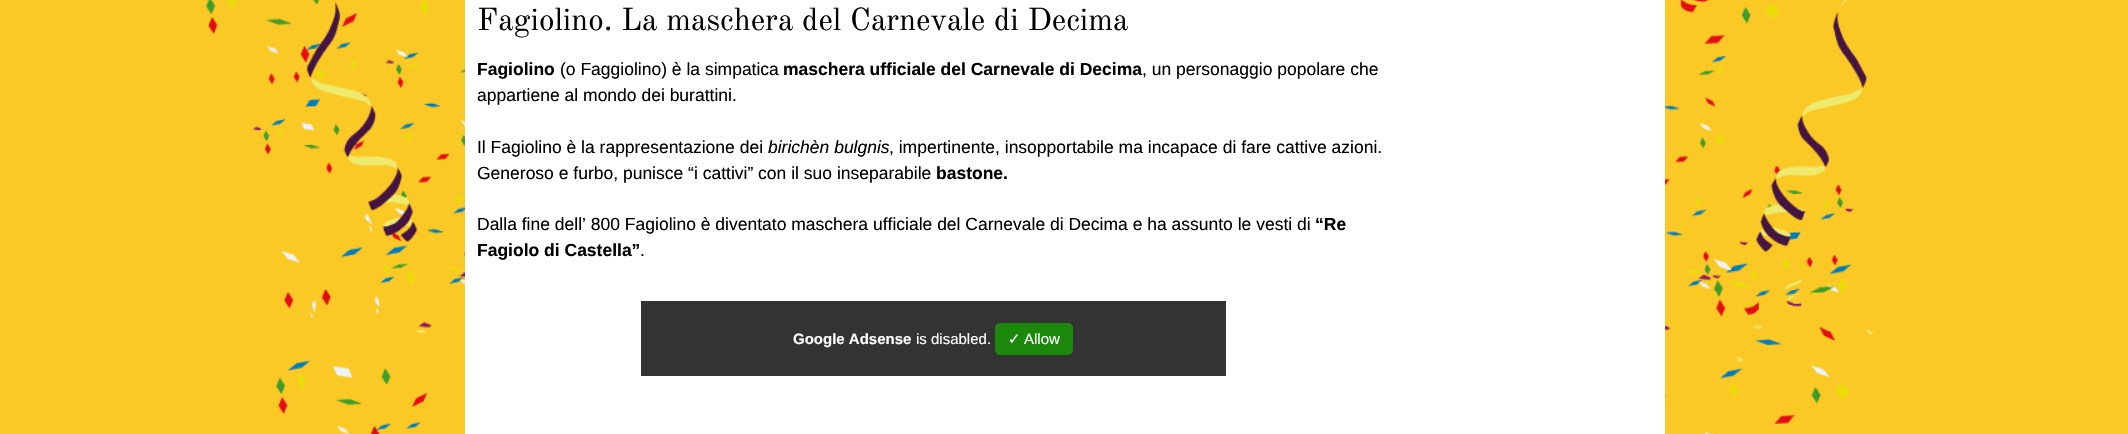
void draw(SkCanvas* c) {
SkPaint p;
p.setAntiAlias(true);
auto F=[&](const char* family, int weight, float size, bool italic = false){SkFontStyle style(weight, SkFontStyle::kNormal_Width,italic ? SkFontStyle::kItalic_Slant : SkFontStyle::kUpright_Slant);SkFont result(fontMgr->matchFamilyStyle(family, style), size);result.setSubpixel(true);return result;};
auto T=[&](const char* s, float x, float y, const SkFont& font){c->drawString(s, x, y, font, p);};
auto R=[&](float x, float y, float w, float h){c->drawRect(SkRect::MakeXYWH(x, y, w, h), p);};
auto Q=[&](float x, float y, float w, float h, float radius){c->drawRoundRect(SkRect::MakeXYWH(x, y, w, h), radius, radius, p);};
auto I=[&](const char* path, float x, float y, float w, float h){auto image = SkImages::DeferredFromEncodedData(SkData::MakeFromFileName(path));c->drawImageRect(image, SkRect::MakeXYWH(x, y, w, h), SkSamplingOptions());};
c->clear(0xfffbc926);
I("1.png",206,0,1668,434);
p.setColor(0xffffffff);
R(465,0,1200,434);
auto f1 = F("Old Standard TT",400,31.25);
p.setColor(0xff000000);
T("Fagiolino. La maschera del Carnevale di Decima",477,30,f1);
auto f2 = F("Liberation Sans",700,17.5);
T("Fagiolino",477,75,f2);
auto f3 = F("Liberation Sans",400,17.5);
T("(o Faggiolino) è la simpatica",560,75,f3);
T("maschera ufficiale del Carnevale di Decima",783,75,f2);
T(", un personaggio popolare che",1142,75,f3);
T("appartiene al mondo dei burattini.",477,101,f3);
T("Il Fagiolino è la rappresentazione dei",477,153,f3);
auto f4 = F("Liberation Sans",400,17.5,true);
T("birichèn bulgnis",768,153,f4);
T(", impertinente, insopportabile ma incapace di fare cattive azioni.",889,153,f3);
T("Generoso e furbo, punisce “i cattivi” con il suo inseparabile",477,179,f3);
T("bastone.",936,179,f2);
T("Dalla fine dell’ 800 Fagiolino è diventato maschera ufficiale del Carnevale di Decima e ha assunto le vesti di",477,230,f3);
T("“Re",1315,230,f2);
T("Fagiolo di Castella”",477,256,f2);
T(".",640,256,f3);
p.setColor(0xff333333);
R(641,301,585,75);
auto f5 = F("Liberation Sans",700,15);
p.setColor(0xffffffff);
T("Google Adsense",793,344,f5);
auto f6 = F("Liberation Sans",400,15);
T("is disabled.",916,344,f6);
p.setColor(0xff1b870b);
Q(995,323,78,32,5);
auto f7 = F("DejaVu Sans",400,15);
p.setColor(0xffffffff);
T("✓",1008,344,f7);
T("Allow",1024,344,f6);
}
